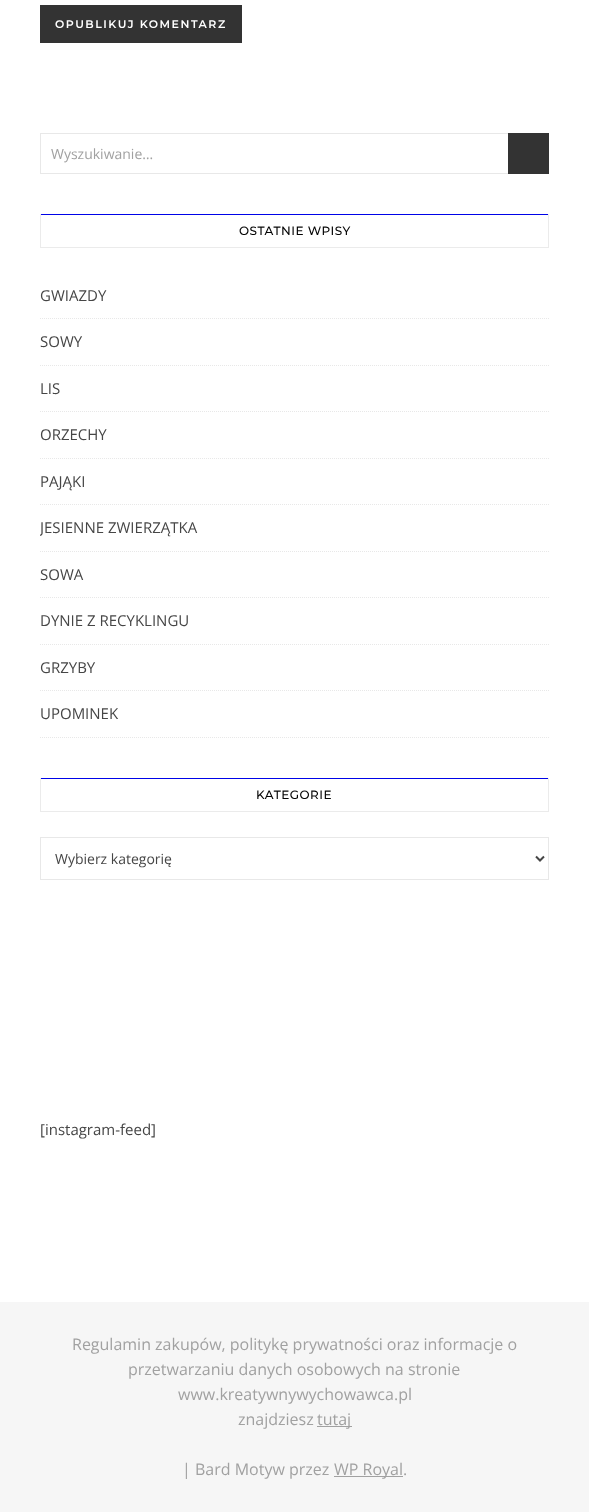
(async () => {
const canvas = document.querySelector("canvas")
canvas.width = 589
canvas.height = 1512
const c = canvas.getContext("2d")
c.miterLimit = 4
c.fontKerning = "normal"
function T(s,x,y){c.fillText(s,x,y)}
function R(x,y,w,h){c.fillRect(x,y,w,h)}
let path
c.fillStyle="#fff"
R(0,0,589,1512)
c.fillStyle="#333"
R(40,5,202,38)
c.letterSpacing="1.5px"
c.font="600 11px Montserrat"
c.fillStyle="#fff"
T("OPUBLIKUJ KOMENTARZ",55,28)
c.strokeStyle="#e8e8e8"
c.strokeRect(40.5,133.5,508,40)
c.letterSpacing="0px"
c.font="14px Open Sans"
c.fillStyle="#a1a1a1"
T("Wyszukiwanie…",51,159)
c.fillStyle="#333"
R(508,133,41,41)
c.fillStyle="#0003e8"
R(40,214,509,1)
c.fillStyle="#ebebeb"
R(548,214,1,34)
R(40,247,509,1)
R(40,214,1,34)
c.letterSpacing="0.5px"
c.font="500 12px Montserrat"
c.fillStyle="#030303"
T("OSTATNIE WPISY",239,235)
path = new Path2D("M40 318.5h509")
c.setLineDash([1,1])
c.stroke(path)
c.letterSpacing="0px"
c.font="15px Open Sans"
c.fillStyle="#464646"
T("GWIAZDY",40,301)
path = new Path2D("M40 365.5h509")
c.stroke(path)
T("SOWY",40,347)
path = new Path2D("M40 411.5h509")
c.stroke(path)
T("LIS",40,394)
path = new Path2D("M40 458.5h509")
c.stroke(path)
T("ORZECHY",40,440)
path = new Path2D("M40 504.5h509")
c.stroke(path)
T("PAJĄKI",40,487)
path = new Path2D("M40 551.5h509")
c.stroke(path)
c.save()
c.beginPath()
c.rect(40,214,509,524)
c.clip()
T("JESIENNE ZWIERZĄTKA",40,533)
c.restore()
path = new Path2D("M40 597.5h509")
c.stroke(path)
T("SOWA",40,580)
path = new Path2D("M40 644.5h509")
c.stroke(path)
T("DYNIE Z RECYKLINGU",40,626)
path = new Path2D("M40 690.5h509")
c.stroke(path)
T("GRZYBY",40,673)
path = new Path2D("M40 737.5h509")
c.stroke(path)
T("UPOMINEK",40,719)
c.fillStyle="#0003e8"
R(40,778,509,1)
c.fillStyle="#ebebeb"
R(548,778,1,34)
R(40,811,509,1)
R(40,778,1,34)
c.letterSpacing="0.5px"
c.font="500 12px Montserrat"
c.fillStyle="#030303"
T("KATEGORIE",256,799)
c.setLineDash([])
c.strokeRect(40.5,837.5,508,42)
path = new Path2D("M536 856.5l4 4l4-4")
c.strokeStyle="#464646"
c.lineWidth=2
c.stroke(path)
c.letterSpacing="0px"
c.font="14px Open Sans"
c.fillStyle="#464646"
T("Wybierz kategorię",55,864)
c.font="15px Open Sans"
T("[instagram-feed]",40,1135)
c.fillStyle="#f6f6f6"
R(0,1302,589,210)
c.font="16px Open Sans"
c.fillStyle="#a1a1a1"
T("Regulamin zakupów, politykę prywatności oraz informacje o",72,1350)
T("przetwarzaniu danych osobowych na stronie",128,1375)
T("www.kreatywnywychowawca.pl",178,1400)
T("znajdziesz",238,1425)
R(317,1426,35,1)
T("tutaj",317,1425)
T("| Bard Motyw przez",182,1475)
R(334,1476,69,1)
T("WP Royal.",334,1475)
})()
